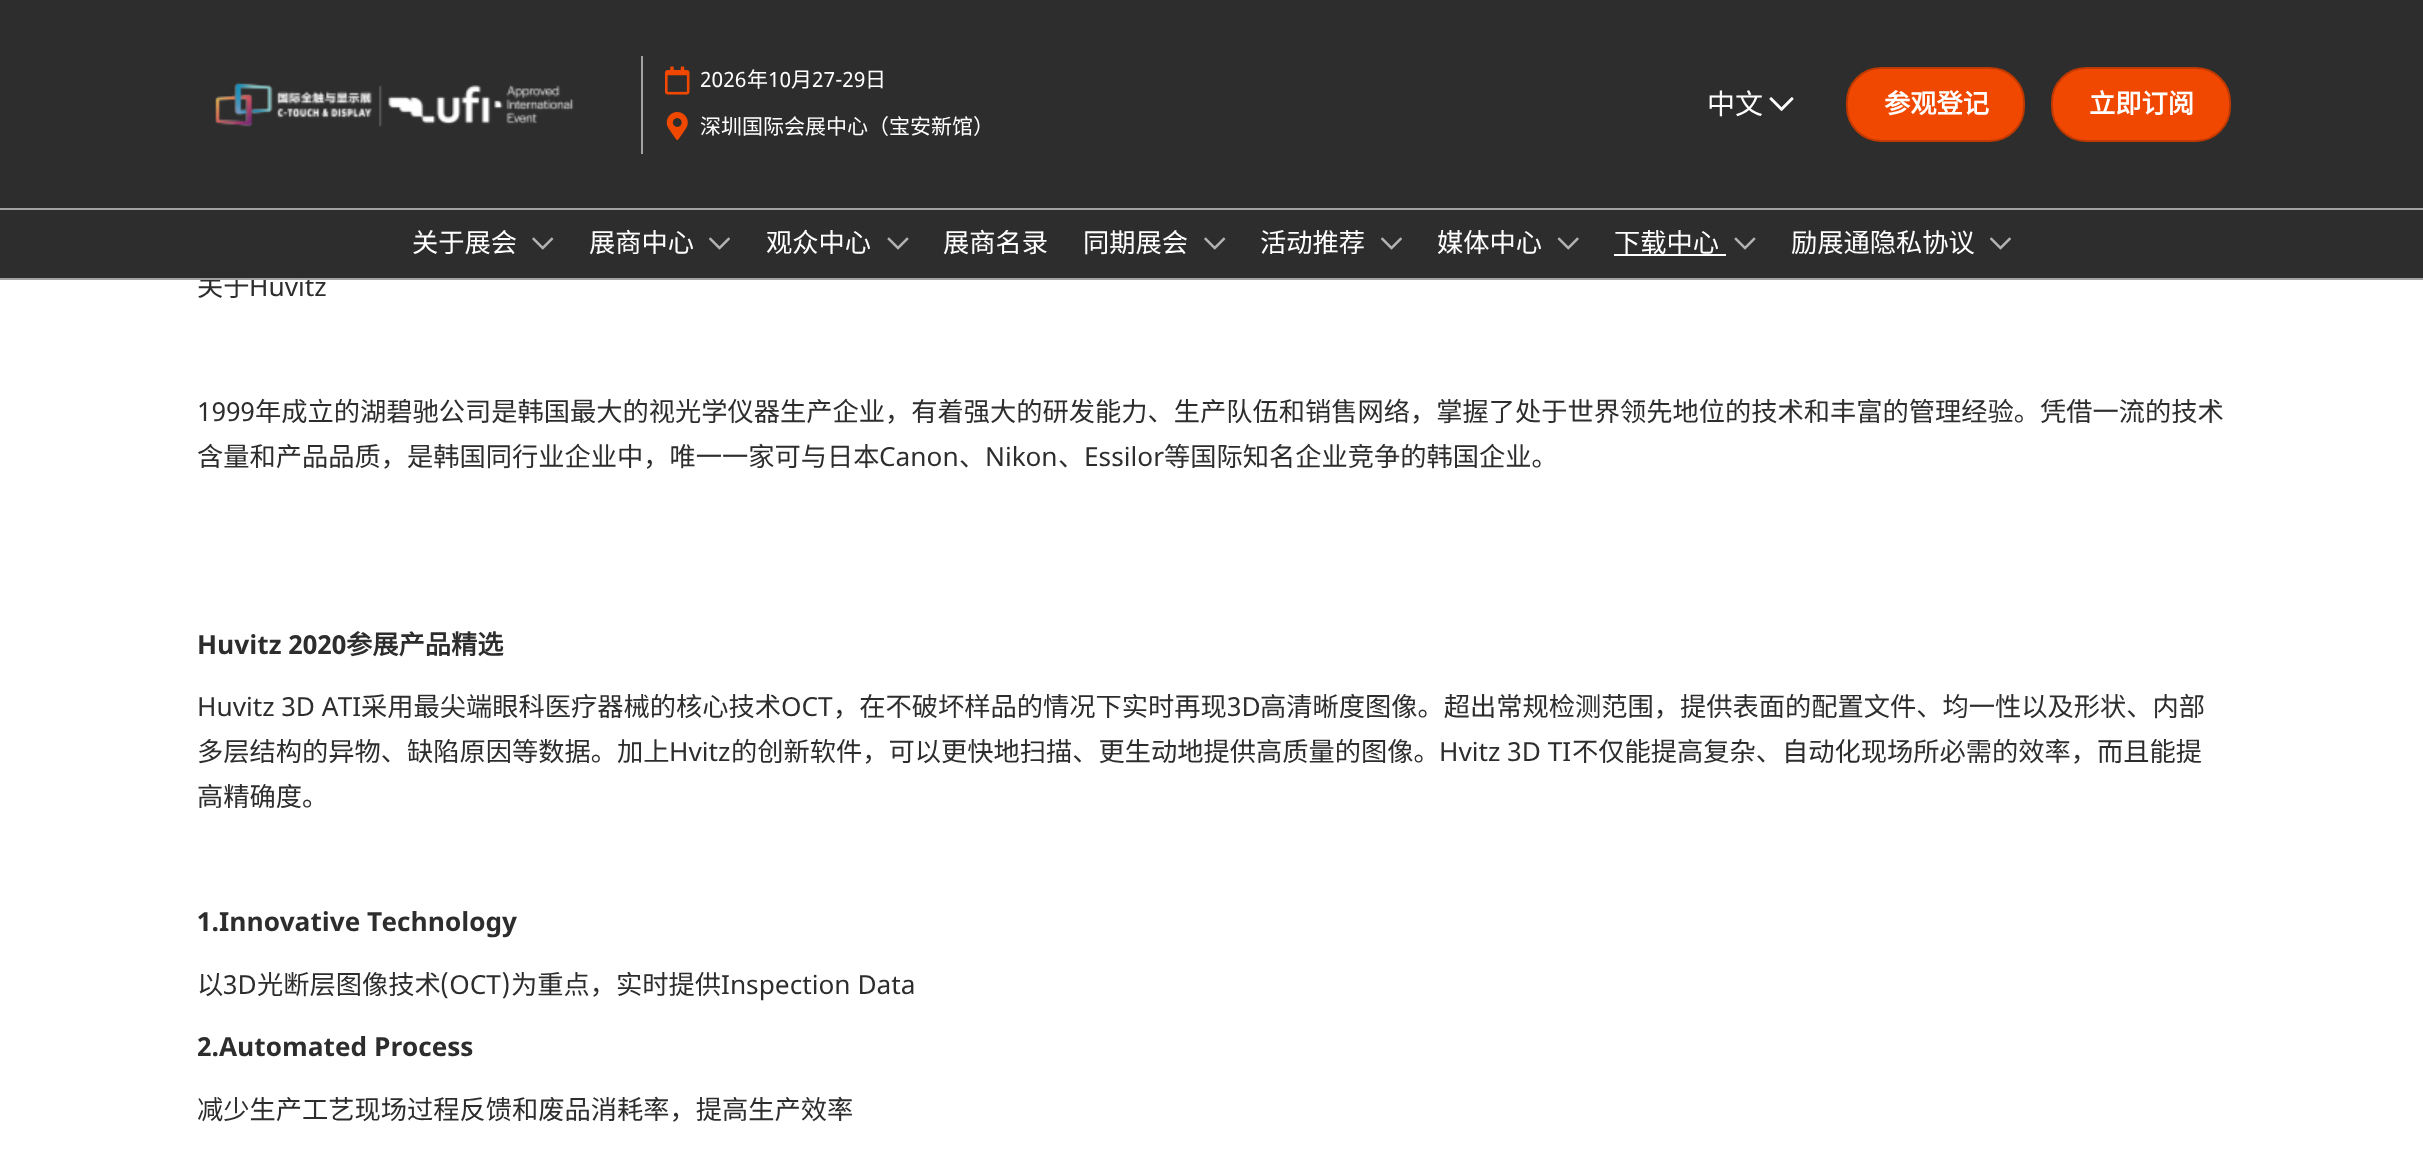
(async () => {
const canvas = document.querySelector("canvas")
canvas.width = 2423
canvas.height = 1158
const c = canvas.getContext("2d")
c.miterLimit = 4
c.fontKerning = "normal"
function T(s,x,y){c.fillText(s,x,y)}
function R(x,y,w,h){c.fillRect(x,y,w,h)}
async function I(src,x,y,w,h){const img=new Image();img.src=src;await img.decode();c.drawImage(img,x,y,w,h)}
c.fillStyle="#fff"
R(0,0,2423,1158)
c.fillStyle="#2d2d2d"
R(0,0,2423,278)
c.font="26.25px Noto Sans CJK SC"
T("关于",197,296)
c.font="26.25px Noto Sans"
T("Huvitz",249,296)
c.fillStyle="#a2a2a2"
R(0,278,2423,2)
R(0,208,2423,2)
await I("1.png",215,82,359,46)
R(641,56,2,98)
await I("2.png",665,66,25,29)
c.font="21px Noto Sans"
c.fillStyle="#fff"
T("2026",700,87)
c.font="21px Noto Sans CJK SC"
T("年",747,87)
c.font="21px Noto Sans"
T("10",768,87)
c.font="21px Noto Sans CJK SC"
T("月",791,87)
c.font="21px Noto Sans"
T("27-29",812,87)
c.font="21px Noto Sans CJK SC"
T("日",865,87)
await I("3.png",666,112,22,28)
T("深圳国际会展中心（宝安新馆）",700,134)
c.font="28px Noto Sans CJK SC"
T("中文",1707,114)
await I("4.png",1769,97,25,14)
c.fillStyle="#f04800"
c.beginPath()
c.roundRect(1847,68,177,73,34)
c.fill()
c.strokeStyle="#bf3900"
c.lineWidth=2
c.stroke()
c.font="bold 26.25px Noto Sans CJK SC"
c.fillStyle="#fff"
T("参观登记",1884,113)
c.fillStyle="#f04800"
c.beginPath()
c.roundRect(2052,68,178,73,34)
c.fill()
c.stroke()
c.fillStyle="#fff"
T("立即订阅",2089,113)
c.font="26.25px Noto Sans CJK SC"
T("关于展会",412,252)
await I("5.png",532,237,22,13)
T("展商中心",589,252)
await I("6.png",709,237,21,13)
T("观众中心",766,252)
await I("7.png",887,237,22,13)
T("展商名录",943,252)
T("同期展会",1083,252)
await I("5.png",1204,237,22,13)
T("活动推荐",1260,252)
await I("6.png",1381,237,21,13)
T("媒体中心",1437,252)
await I("8.png",1557,237,22,13)
R(1614,254,112,2)
T("下载中心",1614,252)
await I("7.png",1734,237,22,13)
T("励展通隐私协议",1791,252)
await I("6.png",1990,237,21,13)
c.font="26.25px Noto Sans"
c.fillStyle="#2d2d2d"
T("1999",197,421)
c.font="26.25px Noto Sans CJK SC"
T("年成立的湖碧驰公司是韩国最大的视光学仪器生产企业，有着强大的研发能力、生产队伍和销售网络，掌握了处于世界领先地位的技术和丰富的管理经验。凭借一流的技术",255,421)
T("含量和产品品质，是韩国同行业企业中，唯一一家可与日本",197,466)
c.font="26.25px Noto Sans"
T("Canon",879,466)
c.font="26.25px Noto Sans CJK SC"
T("、",959,466)
c.font="26.25px Noto Sans"
T("Nikon",985,466)
c.font="26.25px Noto Sans CJK SC"
T("、",1058,466)
c.font="26.25px Noto Sans"
T("Essilor",1084,466)
c.font="26.25px Noto Sans CJK SC"
T("等国际知名企业竞争的韩国企业。",1164,466)
c.font="bold 26.25px Noto Sans"
T("Huvitz 2020",197,654)
c.font="bold 26.25px Noto Sans CJK SC"
T("参展产品精选",346,654)
c.font="26.25px Noto Sans"
T("Huvitz 3D ATI",197,716)
c.font="26.25px Noto Sans CJK SC"
T("采用最尖端眼科医疗器械的核心技术",361,716)
c.font="26.25px Noto Sans"
T("OCT",781,716)
c.font="26.25px Noto Sans CJK SC"
T("，在不破坏样品的情况下实时再现",833,716)
c.font="26.25px Noto Sans"
T("3D",1227,716)
c.font="26.25px Noto Sans CJK SC"
T("高清晰度图像。超出常规检测范围，提供表面的配置文件、均一性以及形状、内部",1260,716)
T("多层结构的异物、缺陷原因等数据。加上",197,761)
c.font="26.25px Noto Sans"
T("Hvitz",669,761)
c.font="26.25px Noto Sans CJK SC"
T("的创新软件，可以更快地扫描、更生动地提供高质量的图像。",731,761)
c.font="26.25px Noto Sans"
T("Hvitz 3D TI",1439,761)
c.font="26.25px Noto Sans CJK SC"
T("不仅能提高复杂、自动化现场所必需的效率，而且能提",1572,761)
T("高精确度。",197,806)
c.font="bold 26.25px Noto Sans"
T("1.Innovative Technology",197,931)
c.font="26.25px Noto Sans CJK SC"
T("以",197,994)
c.font="26.25px Noto Sans"
T("3D",223,994)
c.font="26.25px Noto Sans CJK SC"
T("光断层图像技术",257,994)
c.font="26.25px Noto Sans"
T("(OCT)",440,994)
c.font="26.25px Noto Sans CJK SC"
T("为重点，实时提供",511,994)
c.font="26.25px Noto Sans"
T("Inspection Data",721,994)
c.font="bold 26.25px Noto Sans"
T("2.Automated Process",197,1056)
c.font="26.25px Noto Sans CJK SC"
T("减少生产工艺现场过程反馈和废品消耗率，提高生产效率",197,1119)
})()
